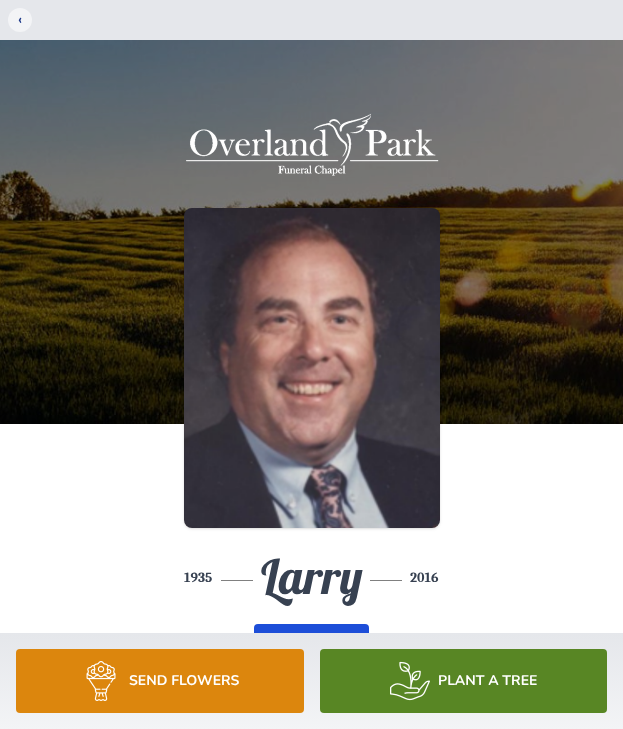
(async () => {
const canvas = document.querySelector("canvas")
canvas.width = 623
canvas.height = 729
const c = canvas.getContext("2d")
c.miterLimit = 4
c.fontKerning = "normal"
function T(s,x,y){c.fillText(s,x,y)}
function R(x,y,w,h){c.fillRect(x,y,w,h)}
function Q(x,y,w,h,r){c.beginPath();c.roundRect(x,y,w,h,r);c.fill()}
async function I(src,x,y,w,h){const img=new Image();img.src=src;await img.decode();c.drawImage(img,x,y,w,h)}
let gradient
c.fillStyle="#fff"
R(0,0,623,729)
c.fillStyle="#e5e7eb"
R(0,0,623,40)
c.fillStyle="#f3f4f6"
c.beginPath()
c.arc(20,20,12,0,7)
c.fill()
c.font="bold 14px Nunito"
c.fillStyle="#1e3a8a"
T("‹",18,24)
await I("1.png",0,40,623,384)
await I("2.png",186,113,253,63)
c.fillStyle="#0000001a"
c.filter="blur(1px)"
c.beginPath()
c.roundRect(185,210,254,318,7)
c.fill()
c.filter="none"
c.filter="blur(1.5px)"
c.beginPath()
c.roundRect(184,209,256,320,8)
c.fill()
c.filter="none"
await I("3.png",184,208,256,320)
c.font="bold 14px Caladea"
c.fillStyle="#374151"
T("1935",184,582)
c.fillStyle="#808080"
R(221,580,32,1)
c.font="48px Lobster"
c.fillStyle="#374151"
T("Larry",261,594)
c.fillStyle="#808080"
R(370,580,32,1)
c.font="bold 14px Caladea"
c.fillStyle="#374151"
T("2016",410,582)
c.fillStyle="#1d4ed8"
Q(254,624,115,40,4)
gradient = c.createLinearGradient(312,633,312,729)
gradient.addColorStop(0,"#e5e7eb")
gradient.addColorStop(1,"#f3f4f6")
c.fillStyle = gradient
R(0,633,623,96)
c.fillStyle="#dc860d"
Q(16,649,288,64,4)
await I("4.png",86,661,30,40)
c.font="bold 14px Nunito"
c.fillStyle="#fff"
T("SEND FLOWERS",129,685)
c.fillStyle="#588624"
Q(320,649,287,64,4)
await I("5.png",390,661,40,40)
c.fillStyle="#fff"
T("PLANT A TREE",438,685)
})()
